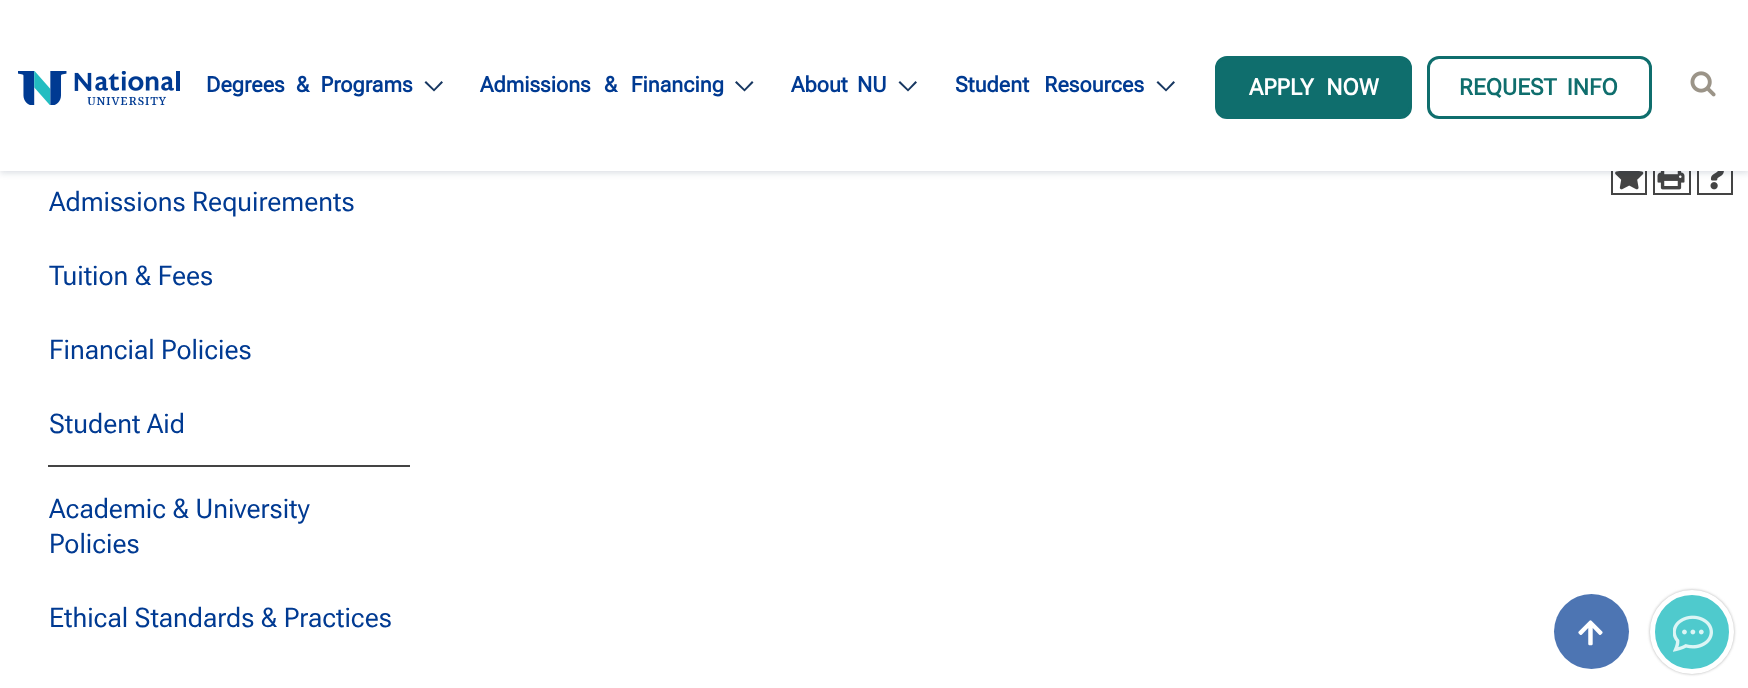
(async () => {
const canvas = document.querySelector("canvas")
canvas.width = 1748
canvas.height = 688
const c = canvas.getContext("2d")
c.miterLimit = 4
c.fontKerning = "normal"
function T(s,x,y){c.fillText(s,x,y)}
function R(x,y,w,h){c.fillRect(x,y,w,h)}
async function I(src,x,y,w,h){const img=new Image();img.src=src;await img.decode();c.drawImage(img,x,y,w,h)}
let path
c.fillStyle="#fff"
R(0,0,1748,688)
c.strokeStyle="#444"
c.lineWidth=2
c.strokeRect(1612,159,34,35)
await I("3.png",1615,171,29,19)
c.strokeRect(1654,159,36,35)
await I("4.png",1657,171,28,19)
c.strokeRect(1698,159,34,35)
await I("5.png",1710,171,14,19)
c.fillStyle="#07204626"
c.filter="blur(3px)"
c.beginPath()
c.rect(0,2,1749,171)
c.fill()
c.filter="none"
c.fillStyle="#fff"
R(0,0,1748,171)
await I("1.png",18,71,162,34)
c.wordSpacing="6px"
c.font="bold 21.5px Roboto Flex"
c.fillStyle="#003a92"
T("Degrees & Programs",206,92)
c.fillStyle="#173761"
path = new Path2D("M441.5 81l-7.5 8l-8-8l-1.5 1.5l9.5 9l9-9z")
c.fill(path)
c.wordSpacing="8px"
c.fillStyle="#003a92"
T("Admissions & Financing",480,92)
c.fillStyle="#173761"
path = new Path2D("M752 81l-7.5 8l-8-8l-1.5 1.5l9.5 9l9-9z")
c.fill(path)
c.wordSpacing="4px"
c.fillStyle="#003a92"
T("About NU",791,92)
c.fillStyle="#173761"
path = new Path2D("M915.5 81l-7.5 8l-8-8l-1.5 1.5l9.5 9l9-9z")
c.fill(path)
c.wordSpacing="10px"
c.fillStyle="#003a92"
T("Student Resources",955,92)
c.fillStyle="#173761"
path = new Path2D("M1173.5 81l-7.5 8l-8-8l-1.5 1.5l9.5 9l9-9z")
c.fill(path)
c.fillStyle="#0f6e6d"
c.beginPath()
c.roundRect(1216.5,57.5,194,60,10.5)
c.fill()
c.strokeStyle="#0f6e6d"
c.lineWidth=3
c.stroke()
c.wordSpacing="7px"
c.font="bold 22.75px Roboto Flex"
c.fillStyle="#fff"
T("APPLY NOW",1249,95)
c.beginPath()
c.roundRect(1428.5,57.5,222,60,10.5)
c.stroke()
c.wordSpacing="5px"
c.fillStyle="#0f6e6d"
T("REQUEST INFO",1459,95)
await I("2.png",1690,71,26,26)
c.wordSpacing="0px"
c.font="27px Roboto Flex"
c.fillStyle="#003a92"
T("Admissions Requirements",49,211)
T("Tuition & Fees",49,285)
T("Financial Policies",49,359)
T("Student Aid",49,433)
c.fillStyle="#444"
R(48,465,362,2)
c.fillStyle="#003a92"
T("Academic & University",49,518)
T("Policies",49,553)
T("Ethical Standards & Practices",49,627)
c.fillStyle="#4d75b3"
c.beginPath()
c.arc(1591.5,631.5,37.5,0,7)
c.fill()
await I("6.png",1578,620,25,26)
c.fillStyle="#adadad"
c.filter="blur(1.5px)"
c.beginPath()
c.roundRect(1650,590,84,84,42)
c.fill()
c.filter="none"
c.fillStyle="#4fcacd"
c.beginPath()
c.arc(1692,632,39.5,0,7)
c.fill()
c.strokeStyle="#fff"
c.lineWidth=5
c.stroke()
await I("7.png",1673,615,40,37)
})()
